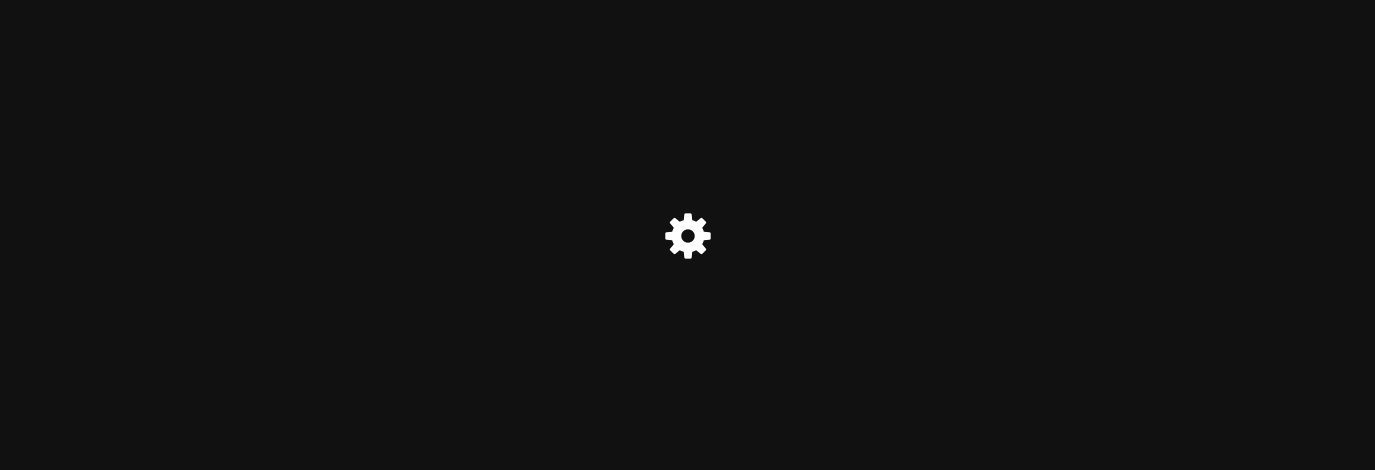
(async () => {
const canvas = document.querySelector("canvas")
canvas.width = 1375
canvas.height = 470
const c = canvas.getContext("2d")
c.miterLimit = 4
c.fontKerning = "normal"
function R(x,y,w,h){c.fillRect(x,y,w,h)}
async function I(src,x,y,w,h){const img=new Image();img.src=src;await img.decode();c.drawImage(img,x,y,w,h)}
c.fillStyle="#111"
R(0,0,1375,470)
await I("1.png",665,213,46,46)
})()
